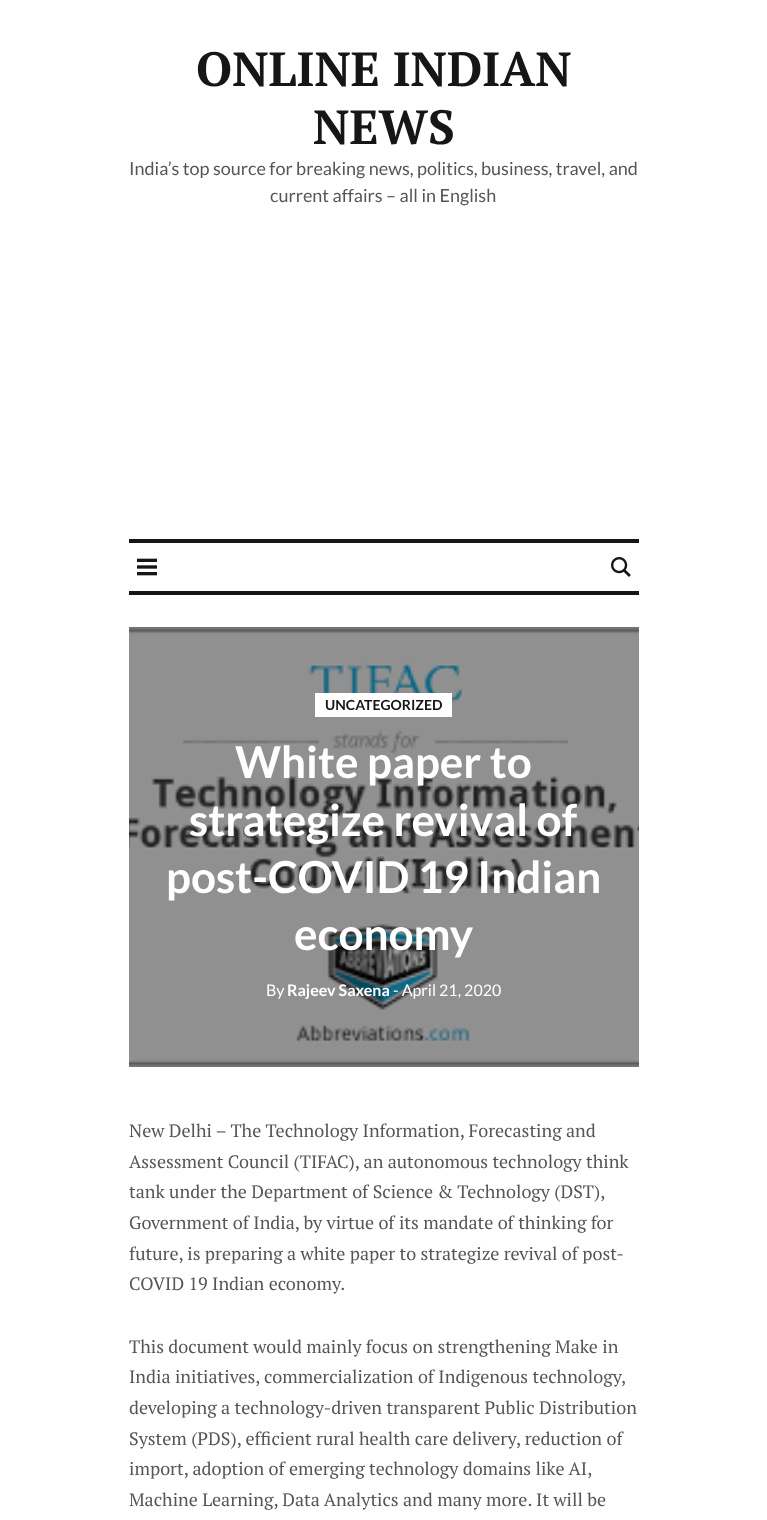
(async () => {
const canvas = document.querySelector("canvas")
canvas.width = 767
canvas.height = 1520
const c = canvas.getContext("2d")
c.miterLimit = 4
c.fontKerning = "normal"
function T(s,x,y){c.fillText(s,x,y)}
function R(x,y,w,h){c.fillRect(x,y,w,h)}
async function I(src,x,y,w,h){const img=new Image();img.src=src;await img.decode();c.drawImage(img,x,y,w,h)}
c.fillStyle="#fff"
R(0,0,767,1520)
c.font="bold 48px PT Serif"
c.fillStyle="#161616"
T("ONLINE INDIAN",196,86)
T("NEWS",313,144)
c.font="18px Lato"
c.fillStyle="#565656"
T("India’s top source for breaking news, politics, business, travel, and",129,175)
T("current affairs – all in English",270,202)
c.fillStyle="#161616"
R(129,539,510,4)
R(129,591,510,4)
await I("1.png",137,558,20,18)
await I("2.png",611,557,20,20)
await I("3.png",129,627,510,440)
c.fillStyle="#fff"
R(315,693,137,24)
c.font="bold 14px Lato"
c.fillStyle="#161616"
T("UNCATEGORIZED",325,710)
c.font="bold 44px Lato"
c.fillStyle="#fff"
T("White paper to",235,778)
T("strategize revival of",189,836)
T("post-COVID 19 Indian",166,893)
T("economy",294,950)
c.font="16px Lato"
T("By",266,996)
c.font="bold 16px Lato"
T("Rajeev Saxena",287,996)
c.font="16px Lato"
T("- April 21, 2020",393,996)
c.font="18px PT Serif"
c.fillStyle="#565656"
T("New Delhi – The Technology Information, Forecasting and",129,1137)
T("Assessment Council (TIFAC), an autonomous technology think",129,1168)
T("tank under the Department of Science & Technology (DST),",129,1198)
T("Government of India, by virtue of its mandate of thinking for",129,1229)
T("future, is preparing a white paper to strategize revival of post-",129,1260)
T("COVID 19 Indian economy.",129,1290)
T("This document would mainly focus on strengthening Make in",129,1353)
T("India initiatives, commercialization of Indigenous technology,",129,1383)
T("developing a technology-driven transparent Public Distribution",129,1414)
T("System (PDS), efficient rural health care delivery, reduction of",129,1445)
T("import, adoption of emerging technology domains like AI,",129,1475)
T("Machine Learning, Data Analytics and many more. It will be",129,1506)
})()
